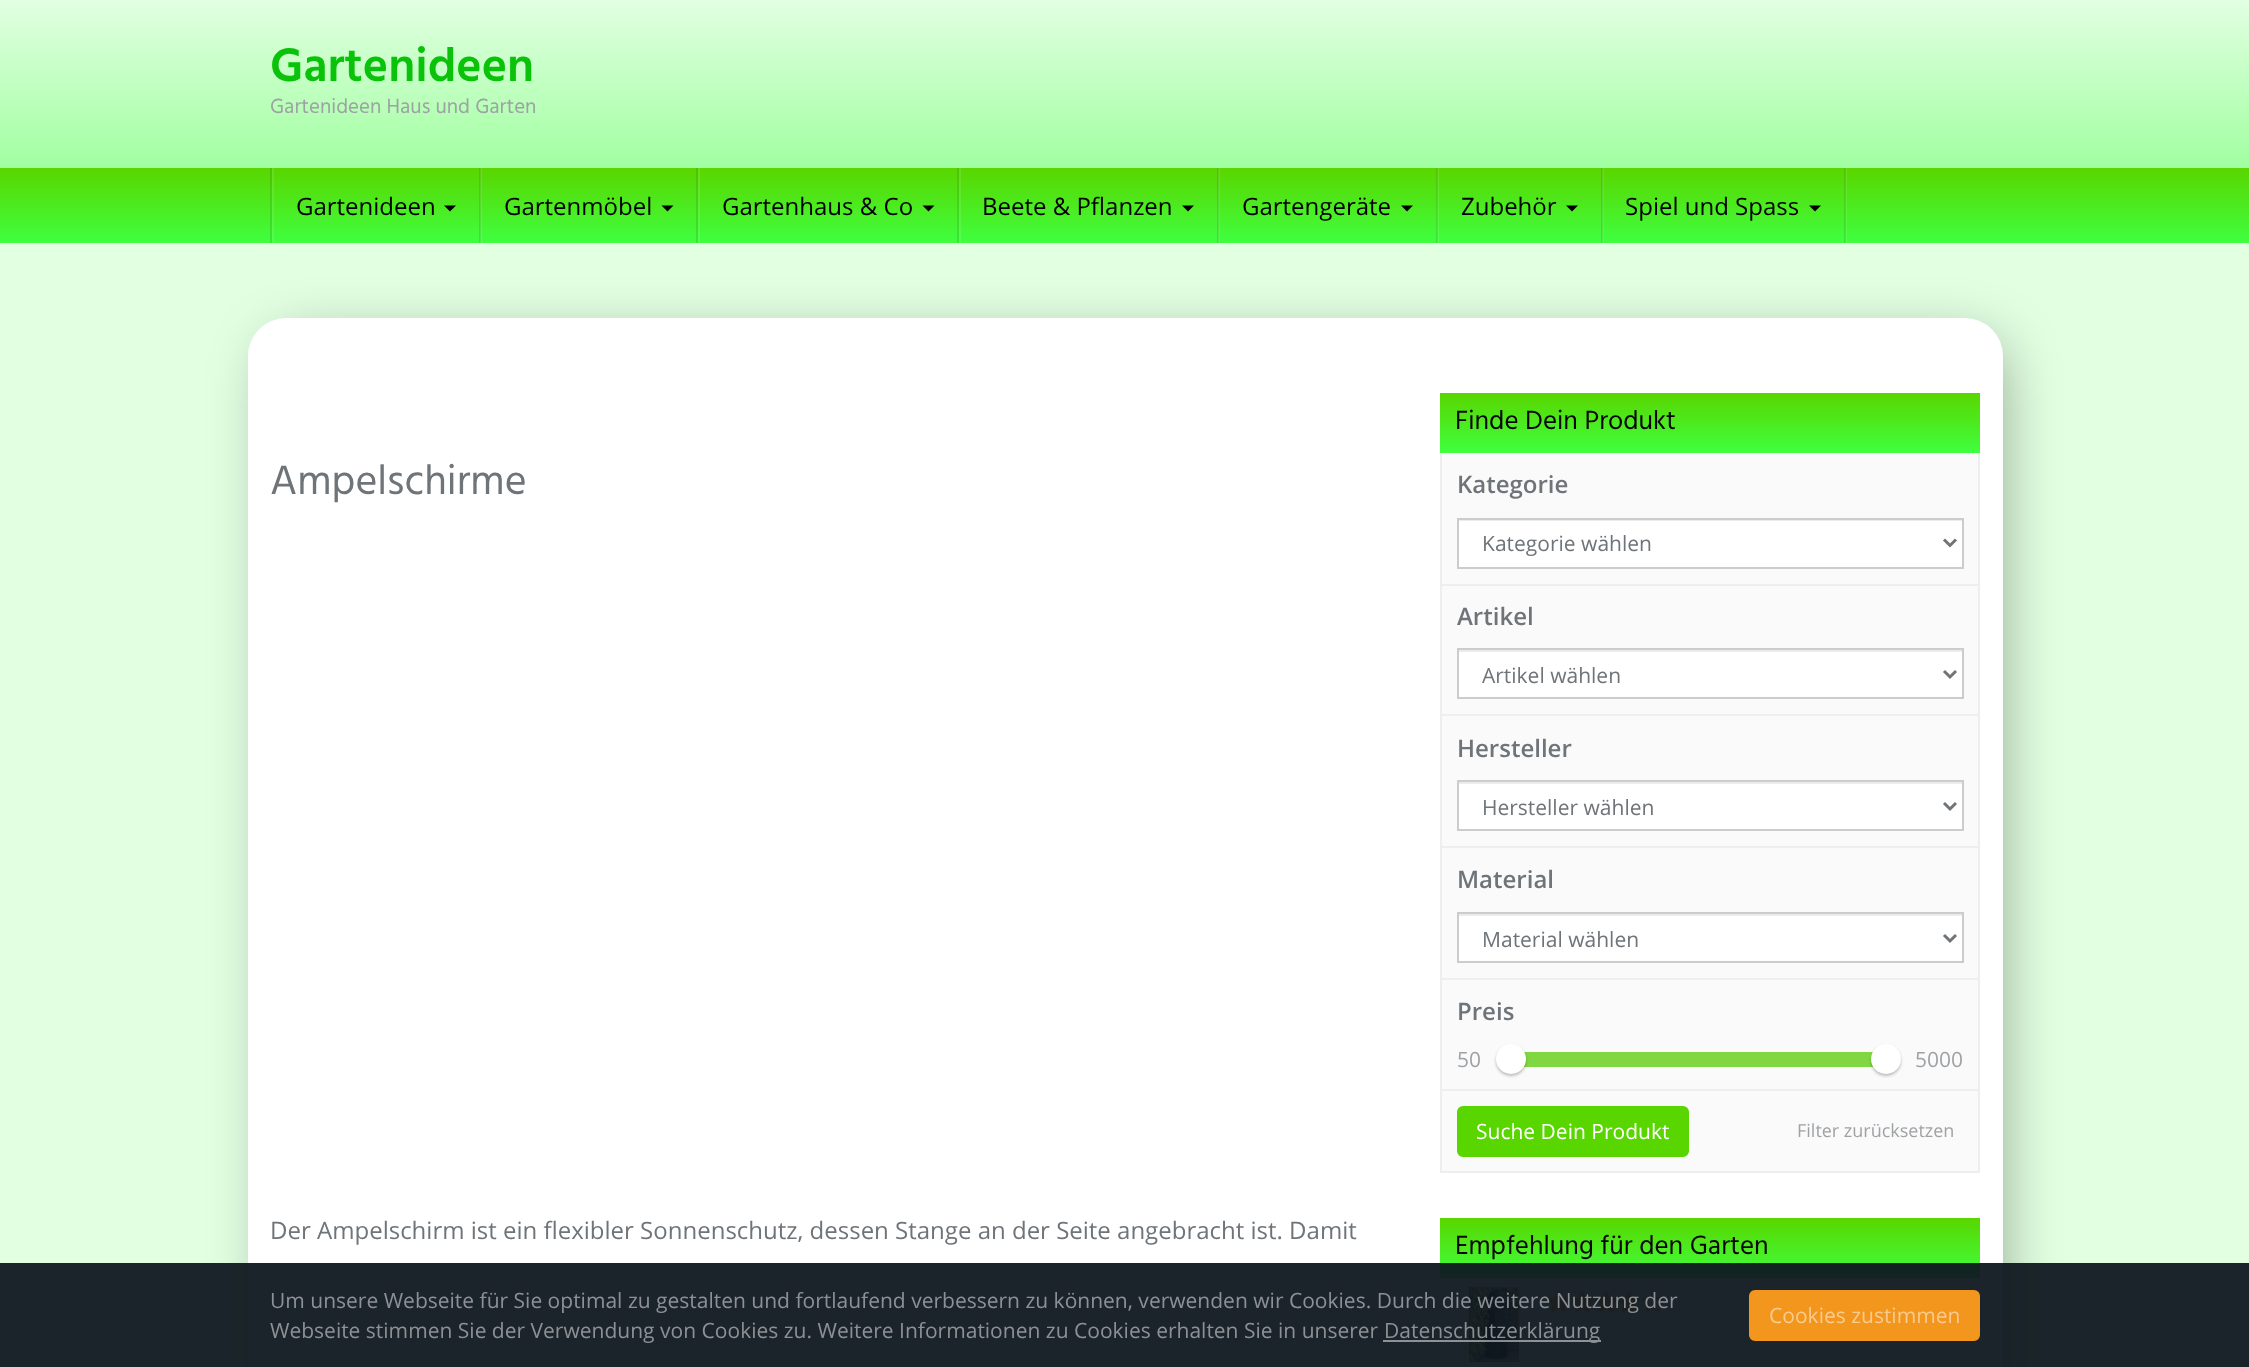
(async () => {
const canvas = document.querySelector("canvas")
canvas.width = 2249
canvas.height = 1367
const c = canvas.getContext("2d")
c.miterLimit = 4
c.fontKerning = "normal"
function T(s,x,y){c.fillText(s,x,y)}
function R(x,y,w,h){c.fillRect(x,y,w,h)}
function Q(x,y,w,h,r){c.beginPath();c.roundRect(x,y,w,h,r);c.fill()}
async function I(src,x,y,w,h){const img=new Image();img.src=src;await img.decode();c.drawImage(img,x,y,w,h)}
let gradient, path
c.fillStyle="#e2ffe2"
R(0,0,2249,1367)
gradient = c.createLinearGradient(1125,0,1125,243)
gradient.addColorStop(0,"#e2ffe2")
gradient.addColorStop(1,"#84ff84")
c.fillStyle = gradient
R(0,6,2249,162)
c.font="600 48px Hind"
c.fillStyle="#09c209"
T("Gartenideen",270,81)
c.font="21px Hind"
c.fillStyle="#9fa2a5"
T("Gartenideen Haus und Garten",270,113)
gradient = c.createLinearGradient(1125,168,1125,243)
gradient.addColorStop(0,"#59d600")
gradient.addColorStop(1,"#3fff3f")
c.fillStyle = gradient
R(0,168,2249,75)
gradient = c.createLinearGradient(1125,168,1125,243)
gradient.addColorStop(0,"#6ada1a")
gradient.addColorStop(1,"#52ff52")
c.fillStyle = gradient
R(1603,168,1,75)
gradient = c.createLinearGradient(1125,168,1125,243)
gradient.addColorStop(0,"#50c100")
gradient.addColorStop(1,"#39e639")
c.fillStyle = gradient
R(1844,168,1,75)
gradient = c.createLinearGradient(1125,168,1125,243)
gradient.addColorStop(0,"#6ada1a")
gradient.addColorStop(1,"#52ff52")
c.fillStyle = gradient
R(1438,168,1,75)
gradient = c.createLinearGradient(1125,168,1125,243)
gradient.addColorStop(0,"#50c100")
gradient.addColorStop(1,"#39e639")
c.fillStyle = gradient
R(1601,168,1,75)
gradient = c.createLinearGradient(1125,168,1125,243)
gradient.addColorStop(0,"#62c71a")
gradient.addColorStop(1,"#4de94d")
c.fillStyle = gradient
R(1602,168,1,75)
gradient = c.createLinearGradient(1125,168,1125,243)
gradient.addColorStop(0,"#6ada1a")
gradient.addColorStop(1,"#52ff52")
c.fillStyle = gradient
R(1219,168,1,75)
gradient = c.createLinearGradient(1125,168,1125,243)
gradient.addColorStop(0,"#50c100")
gradient.addColorStop(1,"#39e639")
c.fillStyle = gradient
R(1436,168,1,75)
gradient = c.createLinearGradient(1125,168,1125,243)
gradient.addColorStop(0,"#62c71a")
gradient.addColorStop(1,"#4de94d")
c.fillStyle = gradient
R(1437,168,1,75)
gradient = c.createLinearGradient(1125,168,1125,243)
gradient.addColorStop(0,"#6ada1a")
gradient.addColorStop(1,"#52ff52")
c.fillStyle = gradient
R(959,168,2,75)
gradient = c.createLinearGradient(1125,168,1125,243)
gradient.addColorStop(0,"#50c100")
gradient.addColorStop(1,"#39e639")
c.fillStyle = gradient
R(1217,168,1,75)
gradient = c.createLinearGradient(1125,168,1125,243)
gradient.addColorStop(0,"#62c71a")
gradient.addColorStop(1,"#4de94d")
c.fillStyle = gradient
R(1218,168,1,75)
gradient = c.createLinearGradient(1125,168,1125,243)
gradient.addColorStop(0,"#6ada1a")
gradient.addColorStop(1,"#52ff52")
c.fillStyle = gradient
R(698,168,2,75)
gradient = c.createLinearGradient(1125,168,1125,243)
gradient.addColorStop(0,"#50c100")
gradient.addColorStop(1,"#39e639")
c.fillStyle = gradient
R(957,168,2,75)
gradient = c.createLinearGradient(1125,168,1125,243)
gradient.addColorStop(0,"#6ada1a")
gradient.addColorStop(1,"#52ff52")
c.fillStyle = gradient
R(481,168,1,75)
gradient = c.createLinearGradient(1125,168,1125,243)
gradient.addColorStop(0,"#50c100")
gradient.addColorStop(1,"#39e639")
c.fillStyle = gradient
R(696,168,2,75)
gradient = c.createLinearGradient(1125,168,1125,243)
gradient.addColorStop(0,"#6ada1a")
gradient.addColorStop(1,"#52ff52")
c.fillStyle = gradient
R(272,168,2,75)
gradient = c.createLinearGradient(1125,168,1125,243)
gradient.addColorStop(0,"#50c100")
gradient.addColorStop(1,"#39e639")
c.fillStyle = gradient
R(479,168,1,75)
gradient = c.createLinearGradient(1125,168,1125,243)
gradient.addColorStop(0,"#62c71a")
gradient.addColorStop(1,"#4de94d")
c.fillStyle = gradient
R(480,168,1,75)
gradient = c.createLinearGradient(1125,168,1125,243)
gradient.addColorStop(0,"#50c100")
gradient.addColorStop(1,"#39e639")
c.fillStyle = gradient
R(270,168,2,75)
gradient = c.createLinearGradient(1125,168,1125,243)
gradient.addColorStop(0,"#6ada1a")
gradient.addColorStop(1,"#52ff52")
c.fillStyle = gradient
R(1846,168,1,75)
gradient = c.createLinearGradient(1125,168,1125,243)
gradient.addColorStop(0,"#5fc417")
gradient.addColorStop(1,"#4ae64a")
c.fillStyle = gradient
R(1845,168,1,75)
c.font="24px Open Sans"
c.fillStyle="#000"
T("Gartenideen",296,215)
path = new Path2D("M444 205.5h12l-6 6z")
c.fill(path)
T("Gartenmöbel",504,215)
path = new Path2D("M661.5 205.5h12l-6 6z")
c.fill(path)
T("Gartenhaus & Co",722,215)
path = new Path2D("M922.5 205.5h12l-6 6z")
c.fill(path)
T("Beete & Pflanzen",982,215)
path = new Path2D("M1182 205.5h12l-6 6z")
c.fill(path)
T("Gartengeräte",1242,215)
path = new Path2D("M1401 205.5h12l-6 6z")
c.fill(path)
T("Zubehör",1461,215)
path = new Path2D("M1566 205.5h12l-6 6z")
c.fill(path)
T("Spiel und Spass",1625,215)
path = new Path2D("M1809 205.5h12l-6 6z")
c.fill(path)
c.fillStyle="#00000066"
c.filter="blur(30px)"
c.beginPath()
c.roundRect(273,344,1725,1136,23)
c.fill()
c.filter="none"
c.fillStyle="#fff"
Q(248,318,1755,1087,38)
c.font="42px Hind"
c.fillStyle="#6f7479"
T("Ampelschirme",270,494)
c.font="24px Open Sans"
T("Der Ampelschirm ist ein flexibler Sonnenschutz, dessen Stange an der Seite angebracht ist. Damit",270,1239)
c.fillStyle="#fafafa"
R(1442,453,536,718)
c.strokeStyle="#eee"
c.lineWidth=2
c.strokeRect(1441,394,538,778)
gradient = c.createLinearGradient(1710,393,1710,453)
gradient.addColorStop(0,"#59d600")
gradient.addColorStop(1,"#3fff3f")
c.fillStyle = gradient
R(1440,393,540,60)
c.font="27px Hind"
c.fillStyle="#070707"
T("Finde Dein Produkt",1455,429)
c.font="600 24px Open Sans"
c.fillStyle="#6f7479"
T("Kategorie",1457,493)
c.fillStyle="#fff"
R(1459,521,503,46)
c.fillStyle="#ececec"
R(1458,520,504,1)
c.strokeStyle="#ccc"
c.strokeRect(1458,519,505,49)
path = new Path2D("M1944 539.5l6 6l6-6")
c.strokeStyle="#6f7479"
c.lineWidth=3
c.stroke(path)
c.font="21px Open Sans"
c.fillStyle="#6f7479"
T("Kategorie wählen",1482,551)
c.fillStyle="#eee"
R(1442,584,537,2)
c.font="600 24px Open Sans"
c.fillStyle="#6f7479"
T("Artikel",1457,625)
c.fillStyle="#fff"
R(1459,652,503,45)
c.fillStyle="#ececec"
R(1458,650,504,2)
c.strokeStyle="#ccc"
c.lineWidth=2
c.strokeRect(1458,649,505,49)
path = new Path2D("M1944 671l6 6l6-6")
c.strokeStyle="#6f7479"
c.lineWidth=3
c.stroke(path)
c.font="21px Open Sans"
c.fillStyle="#6f7479"
T("Artikel wählen",1482,683)
c.fillStyle="#eee"
R(1442,714,537,2)
c.font="600 24px Open Sans"
c.fillStyle="#6f7479"
T("Hersteller",1457,757)
c.fillStyle="#fff"
R(1459,784,503,45)
c.fillStyle="#ececec"
R(1458,782,504,2)
c.strokeStyle="#ccc"
c.lineWidth=2
c.strokeRect(1458,781,505,49)
path = new Path2D("M1944 803l6 6l6-6")
c.strokeStyle="#6f7479"
c.lineWidth=3
c.stroke(path)
c.font="21px Open Sans"
c.fillStyle="#6f7479"
T("Hersteller wählen",1482,815)
c.fillStyle="#eee"
R(1442,846,537,2)
c.font="600 24px Open Sans"
c.fillStyle="#6f7479"
T("Material",1457,888)
c.fillStyle="#fff"
R(1459,916,503,45)
c.fillStyle="#ececec"
R(1458,914,504,2)
c.strokeStyle="#ccc"
c.lineWidth=2
c.strokeRect(1458,913,505,49)
path = new Path2D("M1944 935l6 6l6-6")
c.strokeStyle="#6f7479"
c.lineWidth=3
c.stroke(path)
c.font="21px Open Sans"
c.fillStyle="#6f7479"
T("Material wählen",1482,947)
c.fillStyle="#eee"
R(1442,978,537,2)
c.font="600 24px Open Sans"
c.fillStyle="#6f7479"
T("Preis",1457,1020)
c.font="21px Open Sans"
c.fillStyle="#9fa2a5"
T("50",1457,1067)
c.fillStyle="#81d742"
R(1523,1052,351,15)
c.fillStyle="#00000040"
c.filter="blur(1.5px)"
c.beginPath()
c.roundRect(1496,1046,30,30,15)
c.fill()
c.filter="none"
c.fillStyle="#fff"
c.beginPath()
c.arc(1511,1059,15,0,7)
c.fill()
c.fillStyle="#00000040"
c.filter="blur(1.5px)"
c.beginPath()
c.roundRect(1871,1046,30,30,15)
c.fill()
c.filter="none"
c.fillStyle="#fff"
c.beginPath()
c.arc(1886,1059,15,0,7)
c.fill()
c.fillStyle="#9fa2a5"
T("5000",1915,1067)
c.fillStyle="#eee"
R(1442,1089,537,2)
c.fillStyle="#59d600"
c.beginPath()
c.roundRect(1458,1107,230,49,5)
c.fill()
c.strokeStyle="#59d600"
c.lineWidth=2
c.stroke()
c.fillStyle="#fff"
T("Suche Dein Produkt",1476,1139)
c.font="18px Open Sans"
c.fillStyle="#9fa2a5"
T("Filter zurücksetzen",1797,1137)
c.fillStyle="#fafafa"
R(1442,1280,536,87)
c.strokeStyle="#eee"
c.strokeRect(1441,1219,538,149)
gradient = c.createLinearGradient(1710,1218,1710,1278)
gradient.addColorStop(0,"#59d600")
gradient.addColorStop(1,"#3fff3f")
c.fillStyle = gradient
R(1440,1218,540,60)
c.font="27px Hind"
c.fillStyle="#070707"
T("Empfehlung für den Garten",1455,1254)
c.fillStyle="#eee"
R(1442,1278,537,2)
await I("1.png",1457,1287,74,75)
await I("2.png",1547,1291,23,22)
await I("2.png",1571,1291,23,22)
await I("2.png",1595,1291,23,22)
await I("3.png",1617,1291,23,22)
await I("4.png",1641,1291,23,22)
c.fillStyle="#101820f2"
R(0,1263,2249,104)
c.font="21px Open Sans"
c.fillStyle="#8d9195"
T("Um unsere Webseite für Sie optimal zu gestalten und fortlaufend verbessern zu können, verwenden wir Cookies. Durch die weitere Nutzung der",270,1308)
T("Webseite stimmen Sie der Verwendung von Cookies zu. Weitere Informationen zu Cookies erhalten Sie in unserer",270,1338)
c.fillStyle="#ffffff80"
R(1383,1340,218,2)
c.fillStyle="#8d9195"
T("Datenschutzerklärung",1384,1338)
c.fillStyle="#f3961d"
c.beginPath()
c.roundRect(1750,1291,229,49,5)
c.fill()
c.strokeStyle="#f3961d"
c.stroke()
c.fillStyle="#f9cb8e"
T("Cookies zustimmen",1769,1323)
})()
